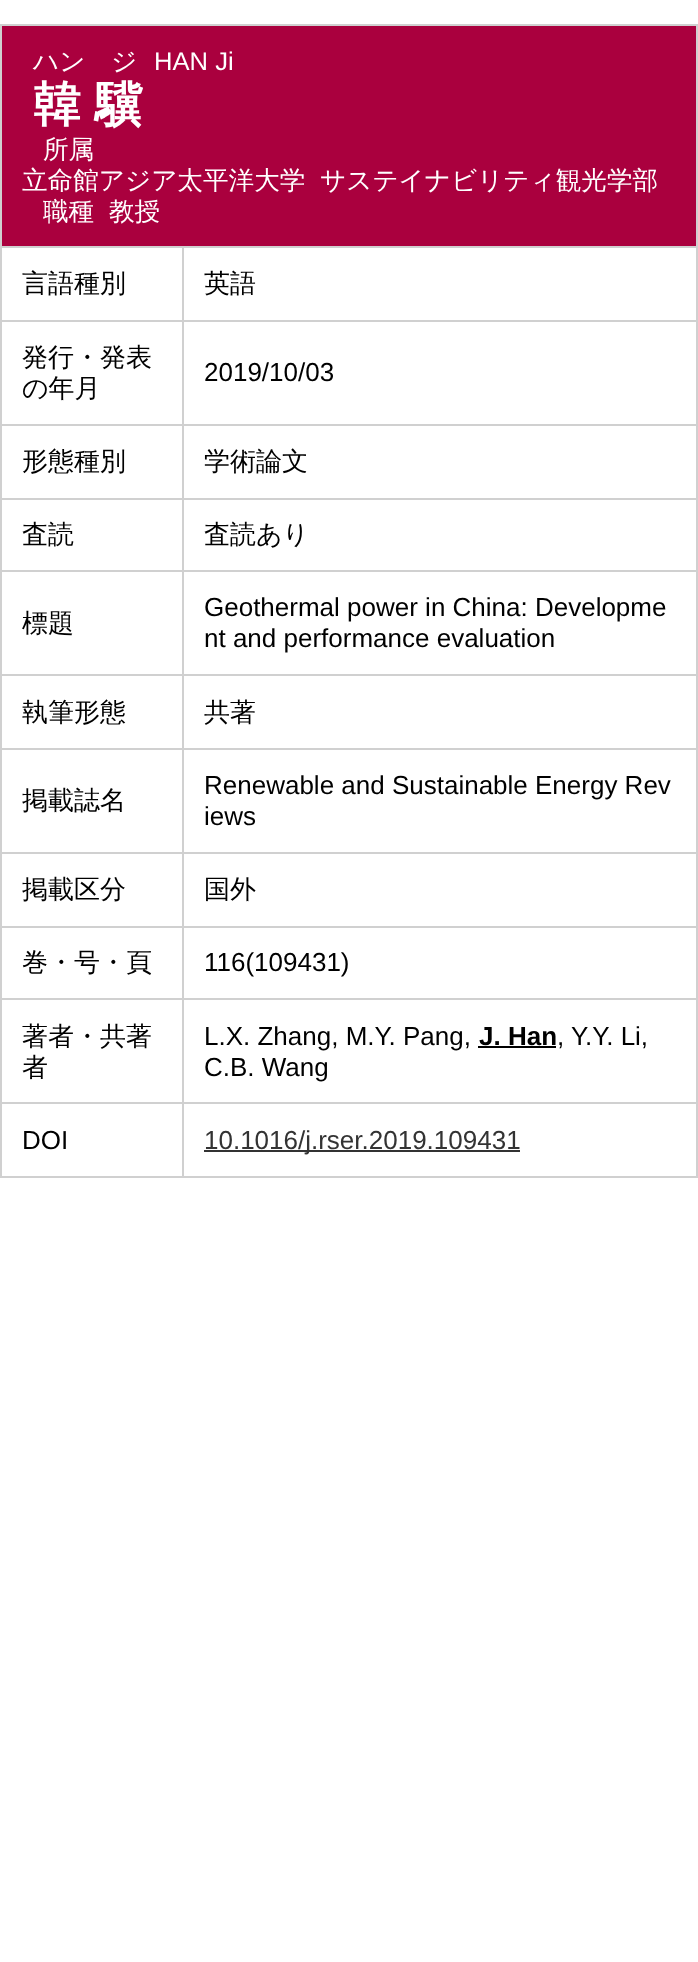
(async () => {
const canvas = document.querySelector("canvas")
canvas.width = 698
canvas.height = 1962
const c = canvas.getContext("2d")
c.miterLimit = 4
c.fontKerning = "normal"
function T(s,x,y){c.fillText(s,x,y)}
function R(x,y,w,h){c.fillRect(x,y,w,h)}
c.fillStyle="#fff"
R(0,0,698,1962)
c.fillStyle="#d0d0d0"
R(0,24,698,1154)
c.fillStyle="#aa003e"
R(2,26,694,220)
c.font="500 25.6px WenQuanYi Zen Hei"
c.fillStyle="#fff"
T("ハン　ジ",33,70)
c.font="25.6px Liberation Sans"
T("HAN Ji",154,70)
c.wordSpacing="-1px"
c.font="bold 48px WenQuanYi Zen Hei"
T("韓 驥",33,121)
c.wordSpacing="0px"
c.font="500 25.6px WenQuanYi Zen Hei"
T("所属",43,158)
T("立命館アジア太平洋大学",22,189)
T("サステイナビリティ観光学部",320,189)
T("職種",43,220)
T("教授",109,220)
R(2,248,180,72)
c.font="500 26px WenQuanYi Zen Hei"
c.fillStyle="#000"
T("言語種別",22,292)
c.fillStyle="#fff"
R(184,248,512,72)
c.fillStyle="#000"
T("英語",204,292)
c.fillStyle="#fff"
R(2,322,180,102)
c.fillStyle="#000"
T("発行・発表",22,366)
T("の年月",22,397)
c.fillStyle="#fff"
R(184,322,512,102)
c.font="26px Liberation Sans"
c.fillStyle="#000"
T("2019/10/03",204,381)
c.fillStyle="#fff"
R(2,426,180,72)
c.font="500 26px WenQuanYi Zen Hei"
c.fillStyle="#000"
T("形態種別",22,470)
c.fillStyle="#fff"
R(184,426,512,72)
c.fillStyle="#000"
T("学術論文",204,470)
c.fillStyle="#fff"
R(2,500,180,70)
c.fillStyle="#000"
T("査読",22,543)
c.fillStyle="#fff"
R(184,500,512,70)
c.fillStyle="#000"
T("査読あり",204,543)
c.fillStyle="#fff"
R(2,572,180,102)
c.fillStyle="#000"
T("標題",22,632)
c.fillStyle="#fff"
R(184,572,512,102)
c.font="26px Liberation Sans"
c.fillStyle="#000"
T("Geothermal power in China: Developme",204,616)
T("nt and performance evaluation",204,647)
c.fillStyle="#fff"
R(2,676,180,72)
c.font="500 26px WenQuanYi Zen Hei"
c.fillStyle="#000"
T("執筆形態",22,721)
c.fillStyle="#fff"
R(184,676,512,72)
c.fillStyle="#000"
T("共著",204,721)
c.fillStyle="#fff"
R(2,750,180,102)
c.fillStyle="#000"
T("掲載誌名",22,809)
c.fillStyle="#fff"
R(184,750,512,102)
c.font="26px Liberation Sans"
c.fillStyle="#000"
T("Renewable and Sustainable Energy Rev",204,794)
T("iews",204,825)
c.fillStyle="#fff"
R(2,854,180,72)
c.font="500 26px WenQuanYi Zen Hei"
c.fillStyle="#000"
T("掲載区分",22,898)
c.fillStyle="#fff"
R(184,854,512,72)
c.fillStyle="#000"
T("国外",204,898)
c.fillStyle="#fff"
R(2,928,180,70)
c.fillStyle="#000"
T("巻・号・頁",22,971)
c.fillStyle="#fff"
R(184,928,512,70)
c.font="26px Liberation Sans"
c.fillStyle="#000"
T("116(109431)",204,971)
c.fillStyle="#fff"
R(2,1000,180,102)
c.font="500 26px WenQuanYi Zen Hei"
c.fillStyle="#000"
T("著者・共著",22,1045)
T("者",22,1076)
c.fillStyle="#fff"
R(184,1000,512,102)
c.font="26px Liberation Sans"
c.fillStyle="#000"
T("L.X. Zhang, M.Y. Pang,",204,1045)
c.font="bold 26px Liberation Sans"
T("J. Han",479,1045)
R(478,1046,78,2)
c.font="26px Liberation Sans"
T(", Y.Y. Li,",557,1045)
T("C.B. Wang",204,1076)
c.fillStyle="#fff"
R(2,1104,180,72)
c.fillStyle="#000"
T("DOI",22,1149)
c.fillStyle="#fff"
R(184,1104,512,72)
c.fillStyle="#333"
R(204,1150,316,2)
T("10.1016/j.rser.2019.109431",204,1149)
})()
